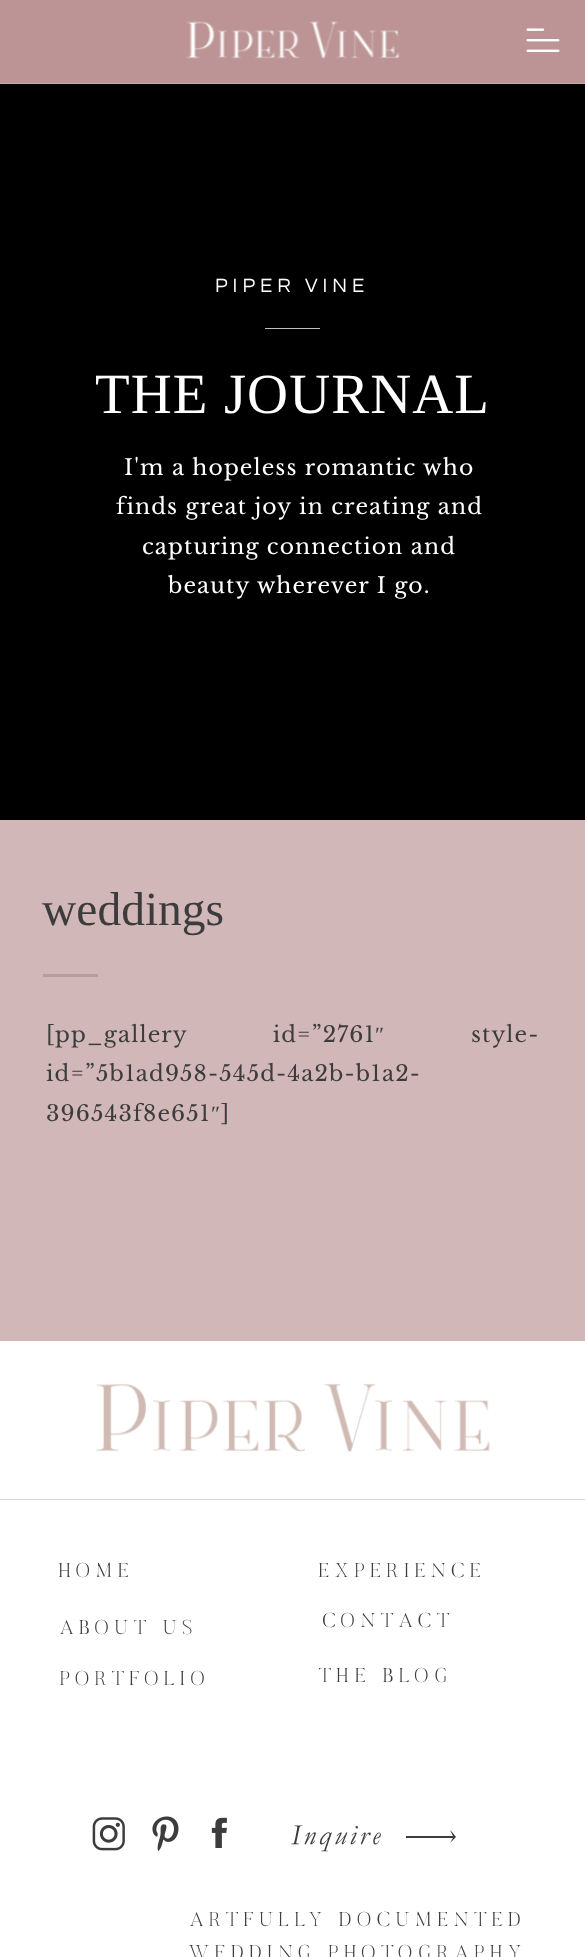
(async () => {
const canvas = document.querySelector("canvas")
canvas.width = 585
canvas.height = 1957
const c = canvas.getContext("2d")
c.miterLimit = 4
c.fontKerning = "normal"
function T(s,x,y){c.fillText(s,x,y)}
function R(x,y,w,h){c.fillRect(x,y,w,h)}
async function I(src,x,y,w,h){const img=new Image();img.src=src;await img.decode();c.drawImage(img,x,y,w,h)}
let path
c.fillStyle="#bc9495"
R(0,0,585,1957)
await I("1.png",186,21,214,38)
await I("2.png",526,28,34,24)
c.fillStyle="#c9a9aa"
R(0,83,585,1)
c.fillStyle="#000"
R(0,84,585,736)
c.letterSpacing="5px"
c.font="20.1px Questrial"
c.fillStyle="#fff"
T("PIPER VINE",215,292)
c.fillStyle="#bfbfbf"
R(265,328,55,1)
c.letterSpacing="1.1px"
c.font="56.75px Liberation Serif"
c.fillStyle="#fff"
T("THE JOURNAL",95,413)
c.font="21.9px Libre Baskerville"
T("I'm a hopeless romantic who",124,475)
T("finds great joy in creating and",116,514)
T("capturing connection and",142,554)
T("beauty wherever I go.",168,593)
c.fillStyle="#d2b7b8"
R(0,820,585,521)
c.letterSpacing="0px"
c.font="47.5px Liberation Serif"
c.fillStyle="#3c3c3c"
T("weddings",42,925)
c.fillStyle="#b49e9f"
R(43,974,55,3)
c.letterSpacing="1.1px"
c.wordSpacing="78px"
c.font="21.9px Libre Baskerville"
c.fillStyle="#3c3c3c"
T("[pp_gallery id=”2761",46,1042)
c.wordSpacing="0px"
c.font="21.9px Liberation Serif"
T("″",375,1042)
c.font="21.9px Libre Baskerville"
T("style-",471,1042)
T("id=”5b1ad958-545d-4a2b-b1a2-",46,1081)
T("396543f8e651",46,1121)
c.font="21.9px Liberation Serif"
T("″",211,1121)
c.font="21.9px Libre Baskerville"
T("]",221,1121)
c.fillStyle="#fff"
R(0,1341,585,616)
await I("3.png",96,1383,394,69)
c.fillStyle="#d8d8d8"
R(0,1499,585,1)
c.letterSpacing="5px"
c.font="20.1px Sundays"
c.fillStyle="#3c3c3c"
T("HOME",58,1577)
T("EXPERIENCE",318,1577)
T("ABOUT US",59,1634)
T("CONTACT",322,1627)
T("PORTFOLIO",59,1685)
T("THE BLOG",318,1682)
await I("4.png",92,1817,33,34)
await I("5.png",152,1816,27,35)
await I("6.png",211,1817,16,31)
c.letterSpacing="3px"
c.font="italic 29px Garamond"
T("Inquire",291,1844)
path = new Path2D("M450 1830l3 6h-47v2h47l-3 5l1-1l5-5l-4-5z")
c.fill(path)
c.letterSpacing="5px"
c.font="20.1px Sundays"
T("ARTFULLY DOCUMENTED",189,1926)
T("WEDDING PHOTOGRAPHY",188,1959)
})()
